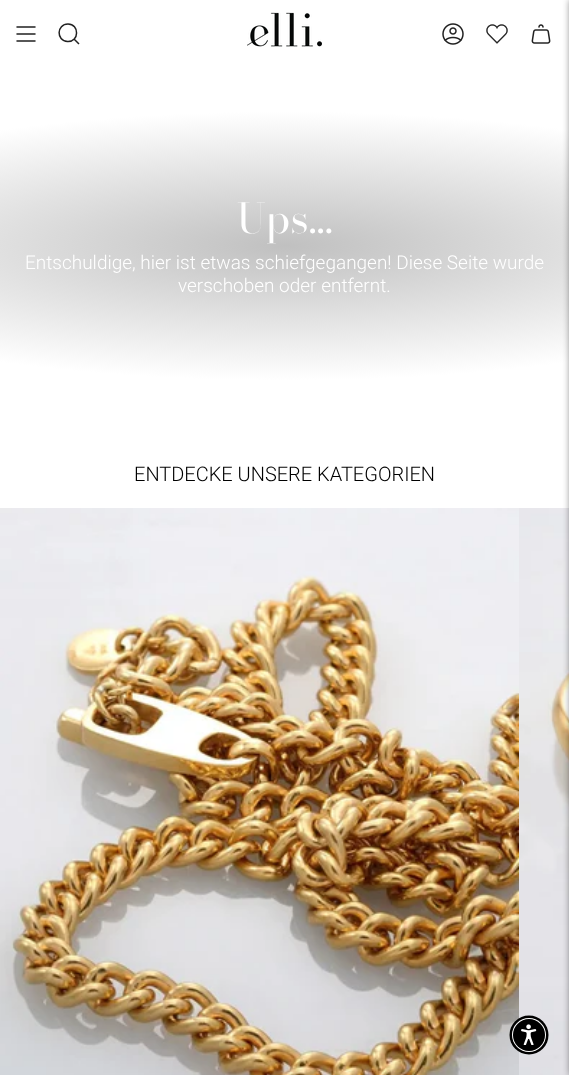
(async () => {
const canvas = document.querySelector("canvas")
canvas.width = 569
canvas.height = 1075
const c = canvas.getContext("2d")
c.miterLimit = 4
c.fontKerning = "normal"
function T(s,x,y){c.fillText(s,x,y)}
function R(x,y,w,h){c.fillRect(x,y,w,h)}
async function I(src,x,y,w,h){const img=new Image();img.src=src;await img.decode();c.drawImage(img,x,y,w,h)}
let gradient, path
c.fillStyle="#fff"
R(0,0,569,1075)
path = new Path2D("M17 27h18m-18 7h18m-18 7h18")
c.strokeStyle="#212121"
c.lineWidth=1.5
c.lineCap="round"
c.lineJoin="round"
c.stroke(path)
path = new Path2D("M68 24c11.5 0 11.5 18-.5 17.5c-11.5-.5-11-17.5 .5-17.5zm6 15l5 5")
c.lineCap="butt"
c.lineJoin="miter"
c.stroke(path)
await I("1.png",247,12,75,35)
await I("2.png",442,23,22,22)
await I("3.png",486,24,22,20)
await I("4.png",531,24,20,20)
gradient = c.createRadialGradient(285,1031.41,0,285,1031.41,805)
gradient.addColorStop(0,"#c0c0c0")
gradient.addColorStop(.7,"#fff")
c.fillStyle = gradient
c.beginPath()
c.ellipse(285,246,569,136,0,0,7)
c.save()
c.clip()
c.scale(1,192 / 805)
c.fillRect(0,0,569,4508)
c.restore()
c.font="41px Bodoni Moda"
c.fillStyle="#fff"
T("Ups...",237,233)
c.font="300 19px Roboto"
T("Entschuldige, hier ist etwas schiefgegangen! Diese Seite wurde",25,269)
T("verschoben oder entfernt.",178,292)
c.font="300 20px Roboto"
c.fillStyle="#000"
T("ENTDECKE UNSERE KATEGORIEN",134,481)
await I("5.png",0,508,519,567)
await I("6.png",519,508,50,567)
c.fillStyle="#00000080"
c.filter="blur(3.5px)"
c.beginPath()
c.rect(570,0,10,1075)
c.fill()
c.filter="none"
c.fillStyle="#000"
c.beginPath()
c.arc(529,1035,19.5,0,7)
c.fill()
c.fillStyle="#fff"
c.beginPath()
c.arc(529,1035,17,0,7)
c.fill()
c.fillStyle="#000"
c.beginPath()
c.arc(529,1035,16,0,7)
c.fill()
await I("7.png",521,1024,16,21)
})()
